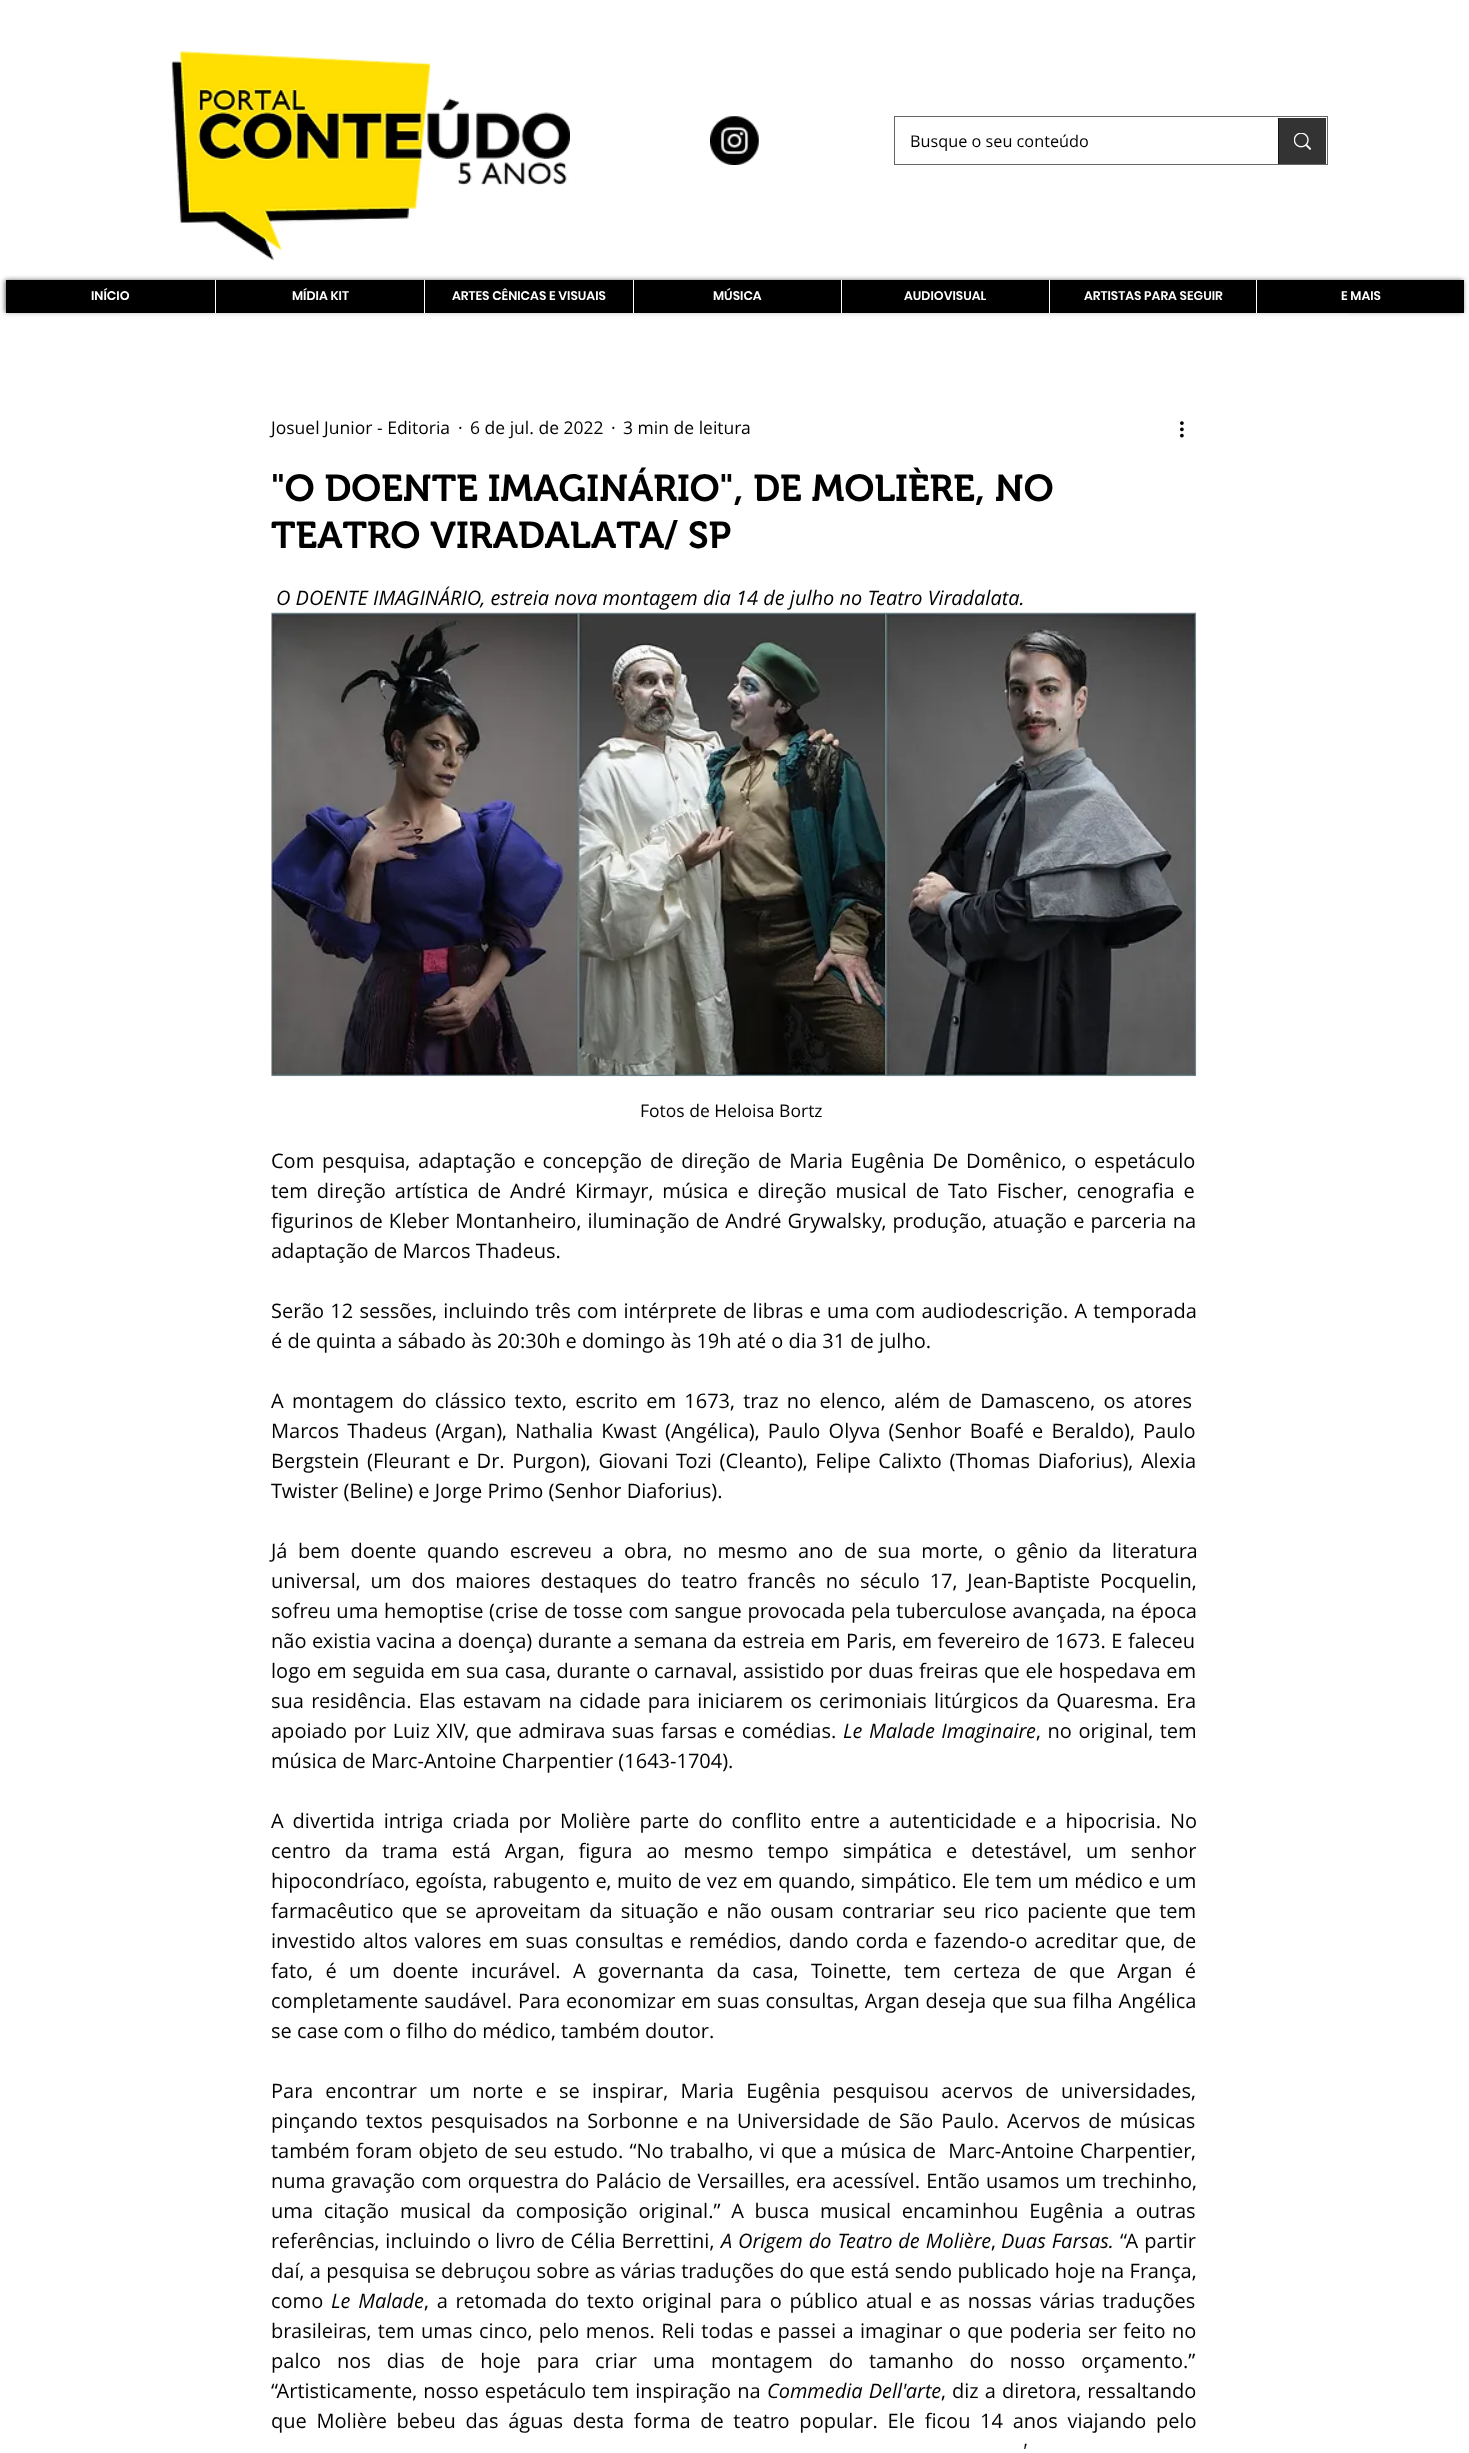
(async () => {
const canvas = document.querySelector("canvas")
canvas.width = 1469
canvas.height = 2453
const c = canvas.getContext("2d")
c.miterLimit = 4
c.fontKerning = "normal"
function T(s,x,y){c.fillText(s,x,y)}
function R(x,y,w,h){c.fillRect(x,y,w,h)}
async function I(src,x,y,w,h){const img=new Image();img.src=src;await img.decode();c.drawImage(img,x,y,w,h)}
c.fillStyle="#fff"
R(0,0,1469,2453)
await I("1.png",171,51,399,210)
await I("2.png",710,116,49,49)
c.strokeStyle="#666"
c.strokeRect(894.5,116.5,433,48)
c.font="16.25px Open Sans"
c.fillStyle="#000"
T("Busque o seu conteúdo",910,147)
c.fillStyle="#333"
R(1279,118,47,46)
c.fillStyle="#141414"
R(1278,118,1,46)
await I("3.png",1294,133,17,17)
c.fillStyle="#00000099"
c.filter="blur(2.5px)"
c.beginPath()
c.rect(5,280,1458,33)
c.fill()
c.filter="none"
c.fillStyle="#000"
R(6,280,1458,33)
c.font="600 12.5px Poppins"
c.fillStyle="#fff"
T("INÍCIO",91,300)
R(215,280,1,33)
T("MÍDIA KIT",292,300)
R(424,280,1,33)
T("ARTES CÊNICAS E VISUAIS",452,300)
R(633,280,1,33)
T("MÚSICA",713,300)
R(841,280,1,33)
T("AUDIOVISUAL",904,300)
R(1049,280,1,33)
T("ARTISTAS PARA SEGUIR",1084,300)
R(1256,280,1,33)
T("E MAIS",1341,300)
c.fillStyle="#ffffff80"
R(2,313,1464,5)
c.fillStyle="#ffffff38"
R(120,313,1228,3)
c.font="17.5px Open Sans"
c.fillStyle="#000"
T("Josuel Junior - Editoria",271,434)
T("·",458,434)
T("6 de jul. de 2022",470,434)
T("·",611,434)
T("3 min de leitura",623,434)
await I("4.png",1180,421,4,17)
c.font="600 37.5px 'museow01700'"
T("\"O DOENTE IMAGINÁRIO\", DE MOLIÈRE, NO",271,501)
T("TEATRO VIRADALATA/ SP",271,548)
c.font="italic 20px Open Sans"
T("O DOENTE IMAGINÁRIO, estreia nova montagem dia 14 de julho no Teatro Viradalata.",276,605)
await I("5.png",271,612,926,465)
c.font="17.5px Open Sans"
T("Fotos de Heloisa Bortz",640,1117)
c.wordSpacing="2.6px"
c.font="20px Open Sans"
T("Com pesquisa, adaptação e concepção de direção de Maria Eugênia De Domênico, o espetáculo",271,1168)
c.wordSpacing="3.75px"
T("tem direção artística de André Kirmayr, música e direção musical de Tato Fischer, cenografia e",271,1198)
c.wordSpacing="0.9px"
T("figurinos de Kleber Montanheiro, iluminação de André Grywalsky, produção, atuação e parceria na",271,1228)
c.wordSpacing="0px"
T("adaptação de Marcos Thadeus.",271,1258)
c.wordSpacing="1px"
T("Serão 12 sessões, incluindo três com intérprete de libras e uma com audiodescrição. A temporada",271,1318)
c.wordSpacing="0px"
T("é de quinta a sábado às 20:30h e domingo às 19h até o dia 31 de julho.",271,1348)
c.wordSpacing="3.1px"
T("A montagem do clássico texto, escrito em 1673, traz no elenco, além de Damasceno, os atores",271,1408)
c.wordSpacing="3px"
T("Marcos Thadeus (Argan), Nathalia Kwast (Angélica), Paulo Olyva (Senhor Boafé e Beraldo), Paulo",271,1438)
c.wordSpacing="2.5px"
T("Bergstein (Fleurant e Dr. Purgon), Giovani Tozi (Cleanto), Felipe Calixto (Thomas Diaforius), Alexia",271,1468)
c.wordSpacing="0px"
T("Twister (Beline) e Jorge Primo (Senhor Diaforius).",271,1498)
c.wordSpacing="5.25px"
T("Já bem doente quando escreveu a obra, no mesmo ano de sua morte, o gênio da literatura",271,1558)
c.wordSpacing="4.75px"
T("universal, um dos maiores destaques do teatro francês no século 17, Jean-Baptiste Pocquelin,",271,1588)
c.wordSpacing="0.5px"
T("sofreu uma hemoptise (crise de tosse com sangue provocada pela tuberculose avançada, na época",271,1618)
c.wordSpacing="0.3px"
T("não existia vacina a doença) durante a semana da estreia em Paris, em fevereiro de 1673. E faleceu",271,1648)
c.wordSpacing="0.5px"
T("logo em seguida em sua casa, durante o carnaval, assistido por duas freiras que ele hospedava em",271,1678)
c.wordSpacing="2px"
T("sua residência. Elas estavam na cidade para iniciarem os cerimoniais litúrgicos da Quaresma. Era",271,1708)
c.wordSpacing="1.4px"
T("apoiado por Luiz XIV, que admirava suas farsas e comédias.",271,1738)
c.font="italic 20px Open Sans"
T("Le Malade Imaginaire",843,1738)
c.font="20px Open Sans"
T(", no original, tem",1036,1738)
c.wordSpacing="0px"
T("música de Marc-Antoine Charpentier (1643-1704).",271,1768)
c.wordSpacing="3.75px"
T("A divertida intriga criada por Molière parte do conflito entre a autenticidade e a hipocrisia. No",271,1828)
c.wordSpacing="8.75px"
T("centro da trama está Argan, figura ao mesmo tempo simpática e detestável,",271,1858)
T("um senhor",1086,1858)
c.wordSpacing="0.4px"
T("hipocondríaco, egoísta, rabugento e, muito de vez em quando, simpático. Ele tem um médico e um",271,1888)
c.wordSpacing="3.1px"
T("farmacêutico que se aproveitam da situação e não ousam contrariar seu rico paciente que tem",271,1918)
c.wordSpacing="1.9px"
T("investido altos valores em suas consultas e remédios, dando corda e fazendo-o acreditar que, de",271,1948)
c.wordSpacing="7.25px"
T("fato, é um doente incurável. A governanta da casa, Toinette, tem certeza de que Argan é",271,1978)
c.wordSpacing="0.7px"
T("completamente saudável. Para economizar em suas consultas, Argan deseja que sua filha Angélica",271,2008)
c.wordSpacing="0px"
T("se case com o filho do médico, também doutor.",271,2038)
c.wordSpacing="7.1px"
T("Para encontrar um norte e se inspirar, Maria Eugênia pesquisou acervos de universidades,",271,2098)
c.wordSpacing="2.75px"
T("pinçando textos pesquisados na Sorbonne e na Universidade de São Paulo. Acervos de músicas",271,2128)
c.wordSpacing="1px"
T("também foram objeto de seu estudo. “No trabalho, vi que a música de  Marc-Antoine Charpentier",271,2158)
c.wordSpacing="0px"
T(",",1191,2158)
c.wordSpacing="1px"
T("numa gravação com orquestra do Palácio de Versailles, era acessível. Então usamos um trechinho,",271,2188)
c.wordSpacing="5.5px"
T("uma citação musical da composição original.” A busca musical encaminhou Eugênia a outras",271,2218)
c.wordSpacing="0.75px"
T("referências, incluindo o livro de Célia Berrettini,",271,2248)
c.font="italic 20px Open Sans"
T("A Origem do Teatro de Molière",721,2248)
c.wordSpacing="0px"
c.font="20px Open Sans"
T(",",991,2248)
c.wordSpacing="0.75px"
c.font="italic 20px Open Sans"
T("Duas Farsas.",1001,2248)
c.font="20px Open Sans"
T("“A partir",1120,2248)
c.wordSpacing="0.2px"
T("daí, a pesquisa se debruçou sobre as várias traduções do que está sendo publicado hoje na França,",271,2278)
c.wordSpacing="0px"
T("como",271,2308)
c.wordSpacing="2.6px"
c.font="italic 20px Open Sans"
T("Le Malade",331,2308)
c.font="20px Open Sans"
T(", a retomada do texto original para o público atual e as nossas várias traduções",424,2308)
c.wordSpacing="1.2px"
T("brasileiras, tem umas cinco, pelo menos. Reli todas e passei a imaginar o que poderia ser feito no",271,2338)
c.wordSpacing="10.75px"
T("palco nos dias de hoje para criar uma montagem do tamanho do nosso orçamento.”",271,2368)
c.wordSpacing="0.9px"
T("“Artisticamente, nosso espetáculo tem inspiração na",271,2398)
c.wordSpacing="1px"
c.font="italic 20px Open Sans"
T("Commedia Dell'arte",767,2398)
c.wordSpacing="0.9px"
c.font="20px Open Sans"
T(", diz a diretora, ressaltando",941,2398)
c.wordSpacing="4.5px"
T("que Molière bebeu das águas desta forma de teatro popular. Ele ficou 14 anos viajando pelo",271,2428)
c.wordSpacing="0px"
c.font="italic 20px Open Sans"
T("'",1022,2458)
})()
